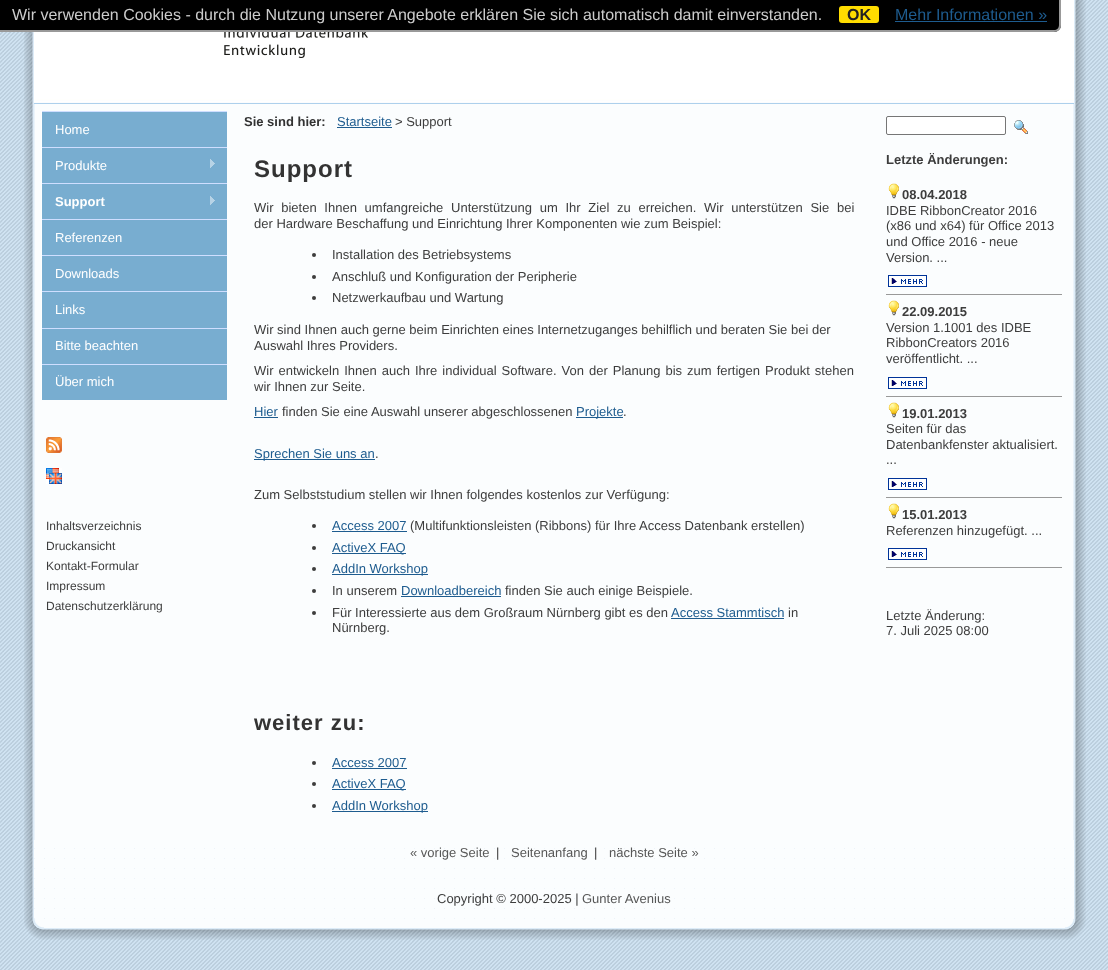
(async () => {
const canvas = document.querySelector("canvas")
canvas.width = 1108
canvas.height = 970
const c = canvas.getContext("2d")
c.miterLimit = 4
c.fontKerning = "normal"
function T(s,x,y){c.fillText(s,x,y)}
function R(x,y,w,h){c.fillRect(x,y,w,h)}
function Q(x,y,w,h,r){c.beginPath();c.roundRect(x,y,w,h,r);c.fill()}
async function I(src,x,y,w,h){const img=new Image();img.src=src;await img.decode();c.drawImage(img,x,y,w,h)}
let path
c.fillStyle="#fff"
R(0,0,1108,970)
await I("1.png",0,0,1108,970)
await I("4.png",24,32,1011,857)
await I("5.png",1035,0,51,889)
await I("2.png",34,0,1040,104)
c.fillStyle="#000"
c.beginPath()
c.roundRect(0,0,1061,32,[0,0,7,0])
c.fill()
c.fillStyle="#999"
path = new Path2D("M0 0h1061v25c0 4-3 7-7 7h-1054zm0 0h1059v25c0 3-2 5-5 5h-1054z")
c.fill(path,"evenodd")
c.font="16px Liberation Sans"
c.fillStyle="#ccc"
T("Wir verwenden Cookies - durch die Nutzung unserer Angebote erklären Sie sich automatisch damit einverstanden.",12,20)
c.fillStyle="#fd0"
Q(839,6,40,17,3)
c.font="bold 16px Liberation Sans"
c.fillStyle="#222"
T("OK",847,20)
c.font="16px Liberation Sans"
c.fillStyle="#1e5c8f"
T("Mehr Informationen »",895,20)
R(895,21,152,1)
await I("3.png",224,32,144,26)
c.fillStyle="#78add0"
R(42,112,185,35)
c.fillStyle="#cfdeff"
R(41,111,186,1)
c.fillStyle="#fff"
R(41,111,1,36)
c.font="13px Liberation Sans"
T("Home",55,134)
c.fillStyle="#78add0"
R(42,148,185,35)
c.fillStyle="#cfdeff"
R(41,147,186,1)
c.fillStyle="#fff"
R(41,147,1,36)
T("Produkte",55,170)
await I("6.png",210,159,5,9)
c.fillStyle="#78add0"
R(42,184,185,35)
c.fillStyle="#cfdeff"
R(41,183,186,1)
c.fillStyle="#fff"
R(41,183,1,36)
c.font="bold 13px Liberation Sans"
T("Support",55,206)
await I("6.png",210,196,5,9)
c.fillStyle="#78add0"
R(42,220,185,35)
c.fillStyle="#cfdeff"
R(41,219,186,1)
c.fillStyle="#fff"
R(41,219,1,36)
c.font="13px Liberation Sans"
T("Referenzen",55,242)
c.fillStyle="#78add0"
R(42,256,185,35)
c.fillStyle="#cfdeff"
R(41,255,186,1)
c.fillStyle="#fff"
R(41,255,1,36)
T("Downloads",55,278)
c.fillStyle="#78add0"
R(42,292,185,36)
c.fillStyle="#cfdeff"
R(41,291,186,1)
c.fillStyle="#fff"
R(41,291,1,37)
T("Links",55,314)
c.fillStyle="#78add0"
R(42,329,185,35)
c.fillStyle="#cfdeff"
R(41,328,186,1)
c.fillStyle="#fff"
R(41,328,1,36)
T("Bitte beachten",55,350)
c.fillStyle="#78add0"
R(42,365,185,35)
c.fillStyle="#cfdeff"
R(41,364,186,1)
c.fillStyle="#fff"
R(41,364,1,36)
T("Über mich",55,386)
await I("7.png",46,437,16,16)
await I("8.png",46,468,16,16)
c.font="12px Liberation Sans"
c.fillStyle="#3d3d3d"
T("Inhaltsverzeichnis",46,530)
T("Druckansicht",46,550)
T("Kontakt-Formular",46,570)
T("Impressum",46,590)
T("Datenschutzerklärung",46,610)
c.font="bold 13px Liberation Sans"
c.fillStyle="#333"
T("Sie sind hier:",244,126)
c.font="13px Liberation Sans"
c.fillStyle="#1e5c8f"
T("Startseite",337,126)
R(337,127,55,1)
c.fillStyle="#3d3d3d"
T("> Support",395,126)
c.letterSpacing="1px"
c.font="bold 24px Liberation Sans"
c.fillStyle="#333"
T("Support",254,177)
c.letterSpacing="0px"
c.wordSpacing="4.1px"
c.font="13px Liberation Sans"
c.fillStyle="#3d3d3d"
T("Wir bieten Ihnen umfangreiche Unterstützung um Ihr Ziel zu erreichen. Wir unterstützen Sie bei",254,212)
c.wordSpacing="0px"
T("der Hardware Beschaffung und Einrichtung Ihrer Komponenten wie zum Beispiel:",254,228)
c.beginPath()
c.arc(314,255,2,0,7)
c.fill()
T("Installation des Betriebsystems",332,259)
c.beginPath()
c.arc(314,277,2,0,7)
c.fill()
T("Anschluß und Konfiguration der Peripherie",332,281)
c.beginPath()
c.arc(314,298,2,0,7)
c.fill()
T("Netzwerkaufbau und Wartung",332,302)
T("Wir sind Ihnen auch gerne beim Einrichten eines Internetzuganges behilflich und beraten Sie bei der",254,334)
T("Auswahl Ihres Providers.",254,350)
c.wordSpacing="1.4px"
T("Wir entwickeln Ihnen auch Ihre individual Software. Von der Planung bis zum fertigen Produkt stehen",254,375)
c.wordSpacing="0px"
T("wir Ihnen zur Seite.",254,391)
c.fillStyle="#1e5c8f"
T("Hier",254,416)
R(254,417,24,1)
c.fillStyle="#3d3d3d"
T("finden Sie eine Auswahl unserer abgeschlossenen",282,416)
c.fillStyle="#1e5c8f"
R(576,417,47,1)
T("Projekte",576,416)
c.fillStyle="#3d3d3d"
T(".",623,416)
c.fillStyle="#1e5c8f"
R(254,459,121,1)
T("Sprechen Sie uns an",254,458)
c.fillStyle="#3d3d3d"
T(".",375,458)
T("Zum Selbststudium stellen wir Ihnen folgendes kostenlos zur Verfügung:",254,499)
c.beginPath()
c.arc(314,526,2,0,7)
c.fill()
c.fillStyle="#1e5c8f"
T("Access 2007",332,530)
R(332,531,75,1)
c.fillStyle="#3d3d3d"
T("(Multifunktionsleisten (Ribbons) für Ihre Access Datenbank erstellen)",410,530)
c.beginPath()
c.arc(314,548,2,0,7)
c.fill()
c.fillStyle="#1e5c8f"
R(332,553,74,1)
T("ActiveX FAQ",332,552)
c.fillStyle="#3d3d3d"
c.beginPath()
c.arc(314,569,2,0,7)
c.fill()
c.fillStyle="#1e5c8f"
R(332,574,96,1)
T("AddIn Workshop",332,573)
c.fillStyle="#3d3d3d"
c.beginPath()
c.arc(314,591,2,0,7)
c.fill()
T("In unserem",332,595)
c.fillStyle="#1e5c8f"
T("Downloadbereich",401,595)
R(401,596,100,1)
c.fillStyle="#3d3d3d"
T("finden Sie auch einige Beispiele.",505,595)
c.beginPath()
c.arc(314,613,2,0,7)
c.fill()
T("Für Interessierte aus dem Großraum Nürnberg gibt es den",332,617)
c.fillStyle="#1e5c8f"
T("Access Stammtisch",671,617)
R(671,618,113,1)
c.fillStyle="#3d3d3d"
T("in",788,617)
T("Nürnberg.",332,632)
c.letterSpacing="1px"
c.font="bold 22px Liberation Sans"
c.fillStyle="#333"
T("weiter zu:",254,730)
c.fillStyle="#3d3d3d"
c.beginPath()
c.arc(314,763,2,0,7)
c.fill()
c.letterSpacing="0px"
c.font="13px Liberation Sans"
c.fillStyle="#1e5c8f"
T("Access 2007",332,767)
R(332,768,75,1)
c.fillStyle="#3d3d3d"
c.beginPath()
c.arc(314,784,2,0,7)
c.fill()
c.fillStyle="#1e5c8f"
R(332,789,74,1)
T("ActiveX FAQ",332,788)
c.fillStyle="#3d3d3d"
c.beginPath()
c.arc(314,806,2,0,7)
c.fill()
c.fillStyle="#1e5c8f"
R(332,811,96,1)
T("AddIn Workshop",332,810)
c.fillStyle="#fff"
c.beginPath()
c.roundRect(886.5,116.5,119,18,1.5)
c.fill()
c.strokeStyle="#767676"
c.stroke()
await I("9.png",1014,120,14,14)
c.font="bold 13px Liberation Sans"
c.fillStyle="#3d3d3d"
T("Letzte Änderungen:",886,164)
await I("10.png",888,183,11,16)
T("08.04.2018",902,199)
c.font="13px Liberation Sans"
T("IDBE RibbonCreator 2016",886,215)
T("(x86 und x64) für Office 2013",886,230)
T("und Office 2016 - neue",886,246)
T("Version. ...",886,262)
await I("11.png",888,275,39,12)
c.fillStyle="#999"
R(886,294,176,1)
await I("10.png",888,300,11,16)
c.font="bold 13px Liberation Sans"
c.fillStyle="#3d3d3d"
T("22.09.2015",902,316)
c.font="13px Liberation Sans"
T("Version 1.1001 des IDBE",886,332)
T("RibbonCreators 2016",886,347)
T("veröffentlicht. ...",886,363)
await I("11.png",888,377,39,12)
c.fillStyle="#999"
R(886,396,176,1)
await I("10.png",888,402,11,16)
c.font="bold 13px Liberation Sans"
c.fillStyle="#3d3d3d"
T("19.01.2013",902,418)
c.font="13px Liberation Sans"
T("Seiten für das",886,433)
T("Datenbankfenster aktualisiert.",886,449)
T("...",886,464)
await I("11.png",888,478,39,12)
c.fillStyle="#999"
R(886,497,176,1)
await I("10.png",888,503,11,16)
c.font="bold 13px Liberation Sans"
c.fillStyle="#3d3d3d"
T("15.01.2013",902,519)
c.font="13px Liberation Sans"
T("Referenzen hinzugefügt. ...",886,535)
await I("11.png",888,548,39,12)
c.fillStyle="#999"
R(886,567,176,1)
c.fillStyle="#3d3d3d"
T("Letzte Änderung:",886,620)
T("7. Juli 2025 08:00",886,635)
await I("15.png",24,889,1011,51)
await I("16.png",1035,889,51,51)
await I("12.png",34,840,1040,79)
c.fillStyle="#575757"
T("« vorige Seite",410,857)
c.fillStyle="#3d3d3d"
T("|",496,857)
c.fillStyle="#575757"
T("Seitenanfang",511,857)
c.fillStyle="#3d3d3d"
T("|",594,857)
c.fillStyle="#575757"
T("nächste Seite »",609,857)
c.fillStyle="#3d3d3d"
T("Copyright © 2000-2025 |",437,903)
c.fillStyle="#575757"
T("Gunter Avenius",582,903)
await I("13.png",34,924,1031,4)
await I("14.png",1070,924,4,4)
})()
